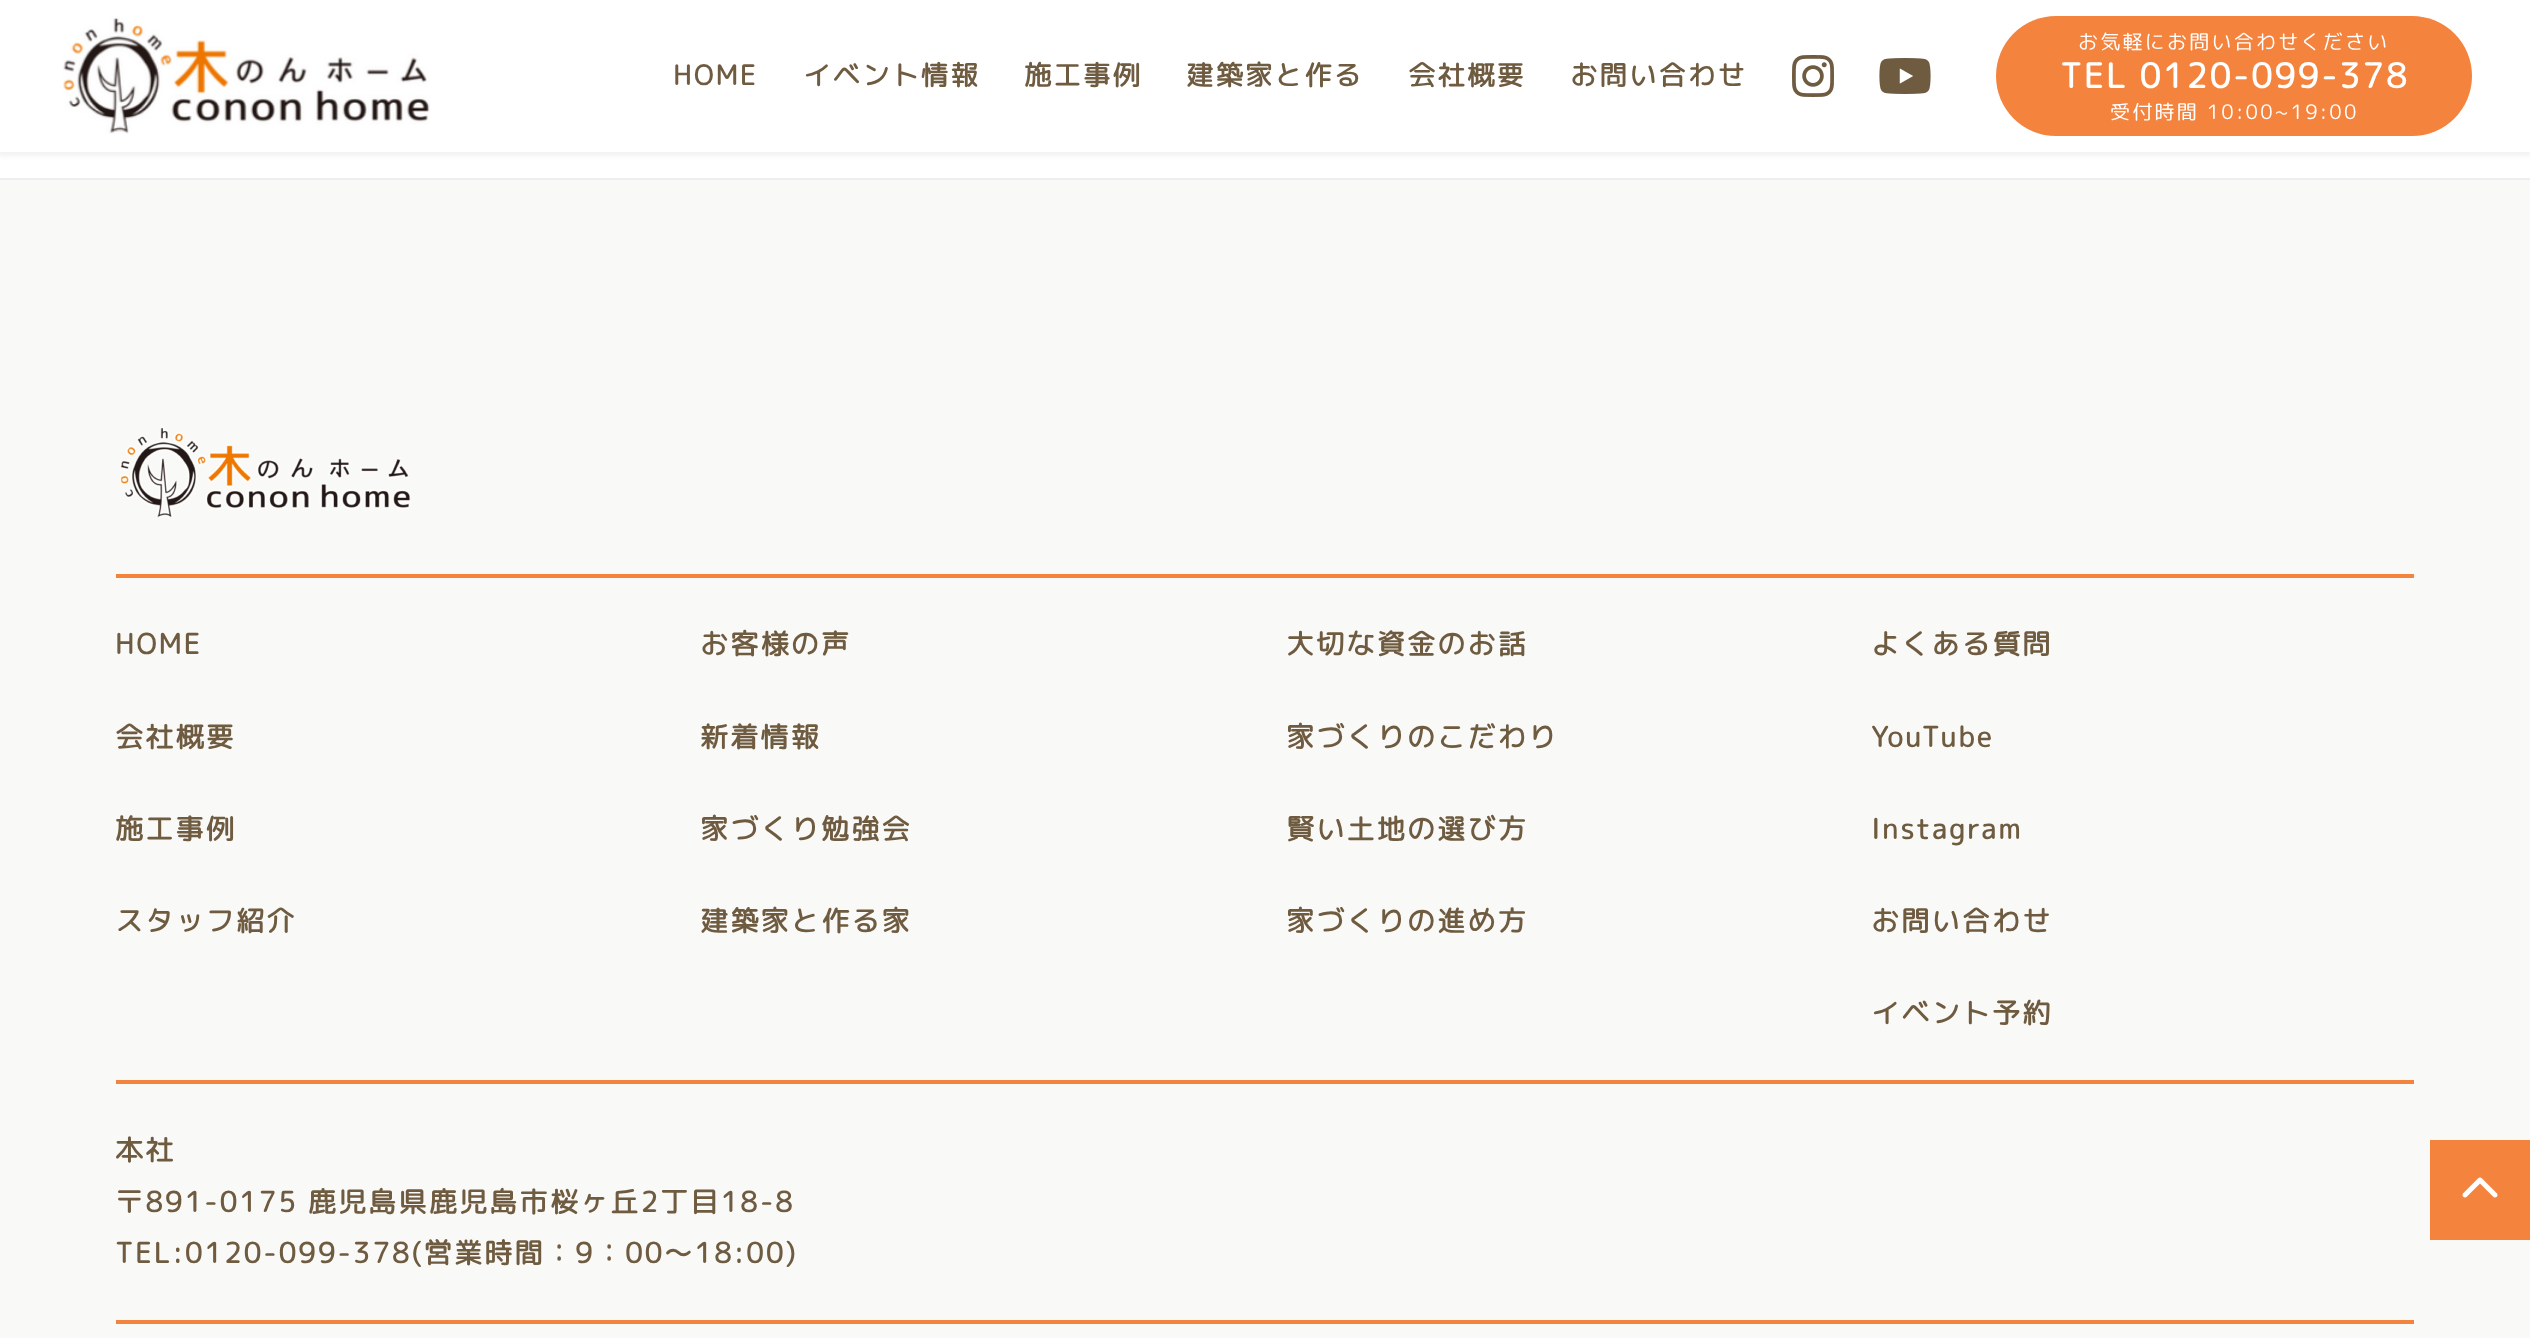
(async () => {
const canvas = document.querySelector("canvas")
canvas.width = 2530
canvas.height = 1338
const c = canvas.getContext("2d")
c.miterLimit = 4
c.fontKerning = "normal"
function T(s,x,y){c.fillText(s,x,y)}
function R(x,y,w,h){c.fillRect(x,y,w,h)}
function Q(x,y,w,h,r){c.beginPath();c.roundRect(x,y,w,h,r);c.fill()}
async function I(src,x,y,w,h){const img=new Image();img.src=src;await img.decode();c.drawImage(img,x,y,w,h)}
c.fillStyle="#fff"
R(0,0,2530,1338)
c.fillStyle="#0000000d"
c.filter="blur(2px)"
c.beginPath()
c.rect(-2,0,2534,156)
c.fill()
c.filter="none"
c.fillStyle="#fff"
R(0,0,2530,152)
await I("1.png",63,17,367,117)
c.letterSpacing="2.25px"
c.font="bold 27.25px 'Rounded Mplus 1c'"
c.fillStyle="#6f5b40"
T("HOME",673,85)
T("イベント情報",803,85)
T("施工事例",1024,85)
T("建築家と作る",1186,85)
T("会社概要",1408,85)
T("お問い合わせ",1570,85)
await I("2.png",1792,55,42,42)
await I("3.png",1879,58,52,36)
c.fillStyle="#f4833d"
Q(1996,16,476,120,60)
c.font="20px 'Rounded Mplus 1c'"
c.fillStyle="#fff"
T("お気軽にお問い合わせください",2078,49)
c.font="bold 34px 'Rounded Mplus 1c'"
T("TEL 0120-099-378",2060,88)
c.font="20px 'Rounded Mplus 1c'"
T("受付時間 10:00~19:00",2110,119)
c.fillStyle="#eee"
R(0,178,2530,2)
c.fillStyle="#f9f9f7"
R(0,180,2530,1158)
await I("4.png",120,427,291,91)
c.fillStyle="#f4833d"
R(116,574,2298,4)
c.font="bold 28px 'Rounded Mplus 1c'"
c.fillStyle="#6f5b40"
T("HOME",115,654)
T("お客様の声",700,654)
T("大切な資金のお話",1286,654)
T("よくある質問",1871,654)
T("会社概要",115,747)
T("新着情報",700,747)
T("家づくりのこだわり",1286,747)
T("YouTube",1871,747)
T("施工事例",115,839)
T("家づくり勉強会",700,839)
T("賢い土地の選び方",1286,839)
T("Instagram",1871,839)
T("スタッフ紹介",115,931)
T("建築家と作る家",700,931)
T("家づくりの進め方",1286,931)
T("お問い合わせ",1871,931)
T("イベント予約",1871,1023)
c.fillStyle="#f4833d"
R(116,1080,2298,4)
c.fillStyle="#6f5b40"
T("本社",115,1160)
T("〒891-0175 鹿児島県鹿児島市桜ヶ丘2丁目18-8",115,1212)
T("TEL:0120-099-378(営業時間：9：00～18:00)",115,1263)
c.fillStyle="#f4833d"
R(116,1320,2298,4)
R(2430,1140,100,100)
await I("5.png",2462,1177,36,21)
})()
